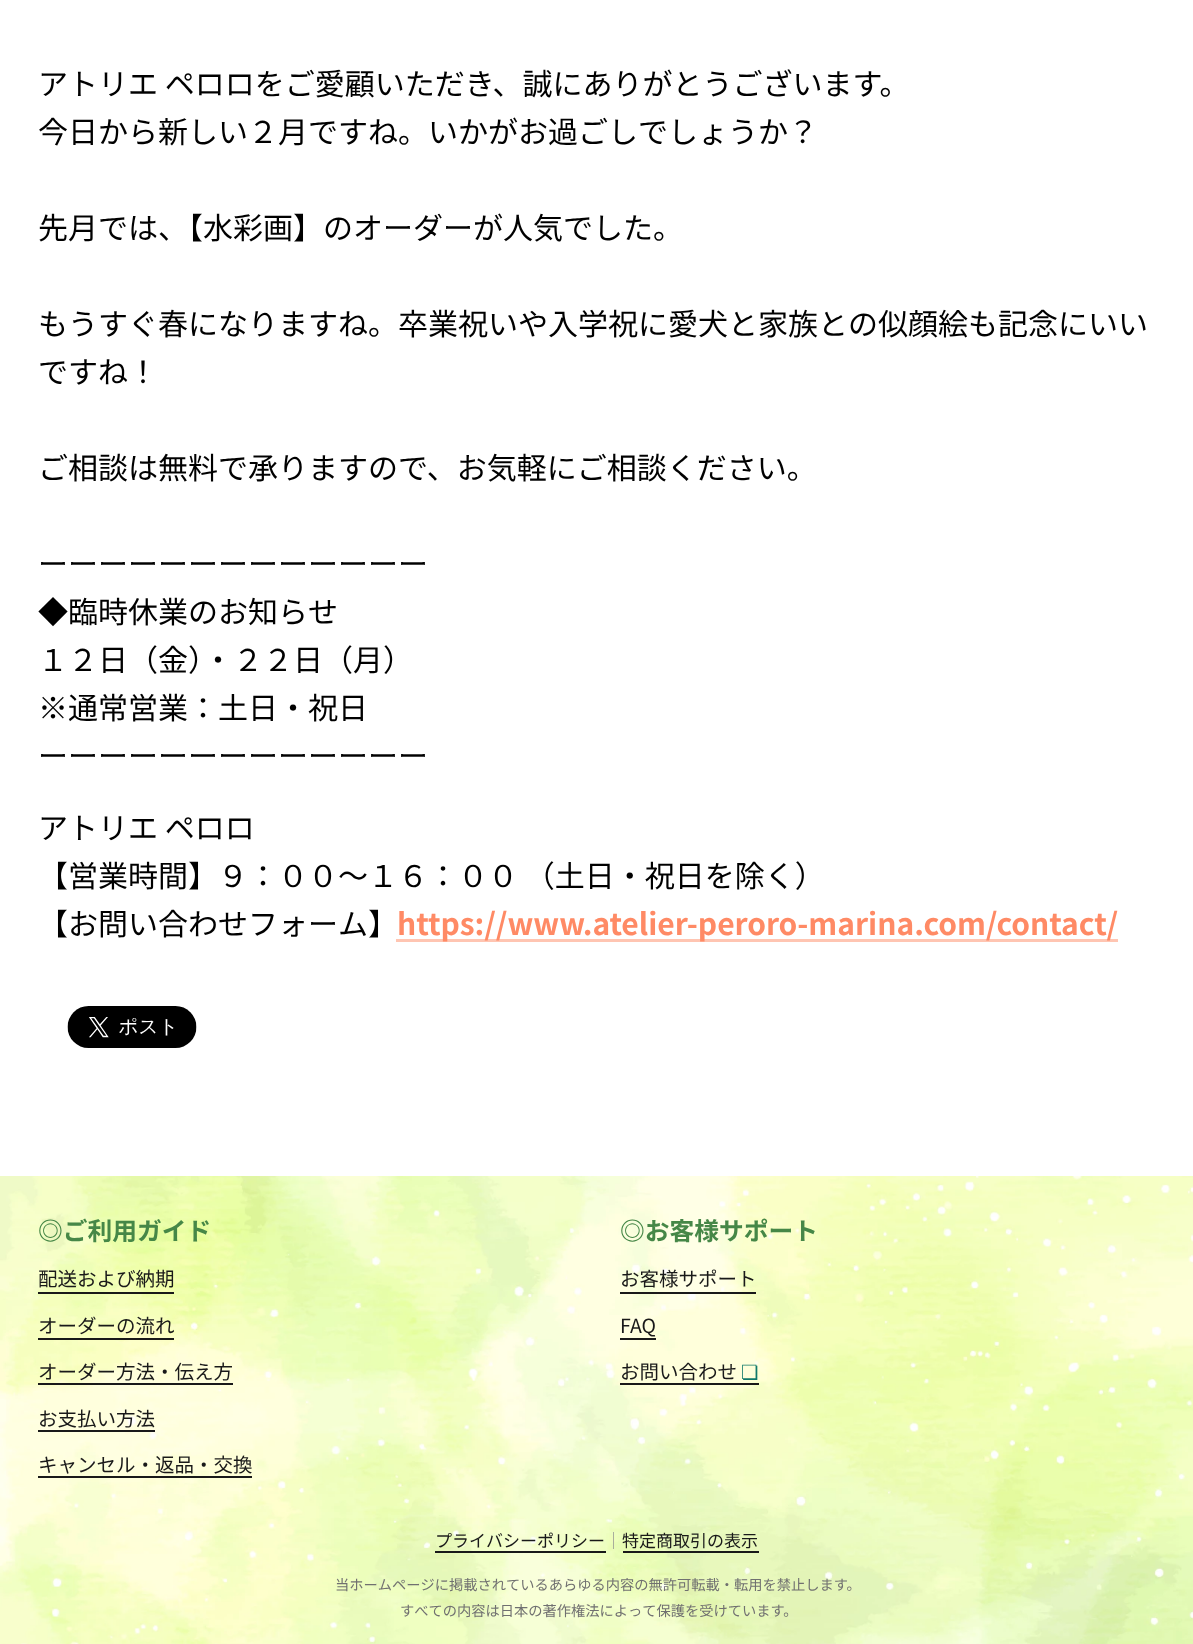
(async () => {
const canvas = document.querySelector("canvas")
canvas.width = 1193
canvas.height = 1644
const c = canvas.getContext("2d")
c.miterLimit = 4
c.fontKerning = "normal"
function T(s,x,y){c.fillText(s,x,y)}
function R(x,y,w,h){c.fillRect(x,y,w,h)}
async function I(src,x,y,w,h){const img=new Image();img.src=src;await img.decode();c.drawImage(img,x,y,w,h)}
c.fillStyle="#fff"
R(0,0,1193,1644)
c.font="30px Noto Sans JP"
c.fillStyle="#000"
T("アトリエ ペロロをご愛顧いただき、誠にありがとうございます。",38,95)
T("今日から新しい２月ですね。いかがお過ごしでしょうか？",38,143)
T("先月では、【水彩画】のオーダーが人気でした。",38,239)
T("もうすぐ春になりますね。卒業祝いや入学祝に愛犬と家族との似顔絵も記念にいい",38,335)
T("ですね！",38,383)
T("ご相談は無料で承りますので、お気軽にご相談ください。",38,479)
T("ーーーーーーーーーーーーー",38,575)
T("◆臨時休業のお知らせ",38,623)
T("１２日（金）・２２日（月）",38,671)
T("※通常営業：土日・祝日",38,719)
T("ーーーーーーーーーーーーー",38,767)
T("アトリエ ペロロ",38,839)
T("【営業時間】９：００～１６：００ （土日・祝日を除く）",38,887)
T("【お問い合わせフォーム】",38,935)
c.fillStyle="#ffc5b2"
R(396,939,722,3)
c.font="bold 30px Noto Sans JP"
c.fillStyle="#ff8a65"
T("https://www.atelier-peroro-marina.com/contact/",397,935)
await I("1.png",67,1006,130,42)
await I("2.png",0,1176,1193,468)
c.font="bold 24.75px Noto Sans JP"
c.fillStyle="#468747"
T("◎ご利用ガイド",38,1240)
c.font="19.5px Noto Sans JP"
c.fillStyle="#191919"
T("配送および納期",38,1286)
R(38,1292,136,2)
T("オーダーの流れ",38,1333)
R(38,1338,136,2)
T("オーダー方法・伝え方",38,1379)
R(38,1383,195,2)
T("お支払い方法",38,1426)
R(38,1430,117,2)
T("キャンセル・返品・交換",38,1472)
R(38,1476,214,2)
c.font="bold 24.75px Noto Sans JP"
c.fillStyle="#468747"
T("◎お客様サポート",620,1240)
c.font="19.5px Noto Sans JP"
c.fillStyle="#191919"
T("お客様サポート",620,1286)
R(620,1292,136,2)
T("FAQ",620,1333)
R(620,1338,36,2)
T("お問い合わせ",620,1379)
c.font="19.5px DejaVu Sans"
c.fillStyle="#10796a"
T("❏",741,1379)
c.fillStyle="#191919"
R(620,1383,139,2)
c.font="17px Noto Sans JP"
T("プライバシーポリシー",435,1547)
R(435,1551,171,2)
c.fillStyle="#919191"
T("｜",605,1547)
c.fillStyle="#191919"
T("特定商取引の表示",622,1547)
R(623,1551,136,2)
c.font="14.25px Noto Sans JP"
c.fillStyle="#707070"
T("当ホームページに掲載されているあらゆる内容の無許可転載・転用を禁止します。",335,1590)
T("すべての内容は日本の著作権法によって保護を受けています。",400,1616)
})()
